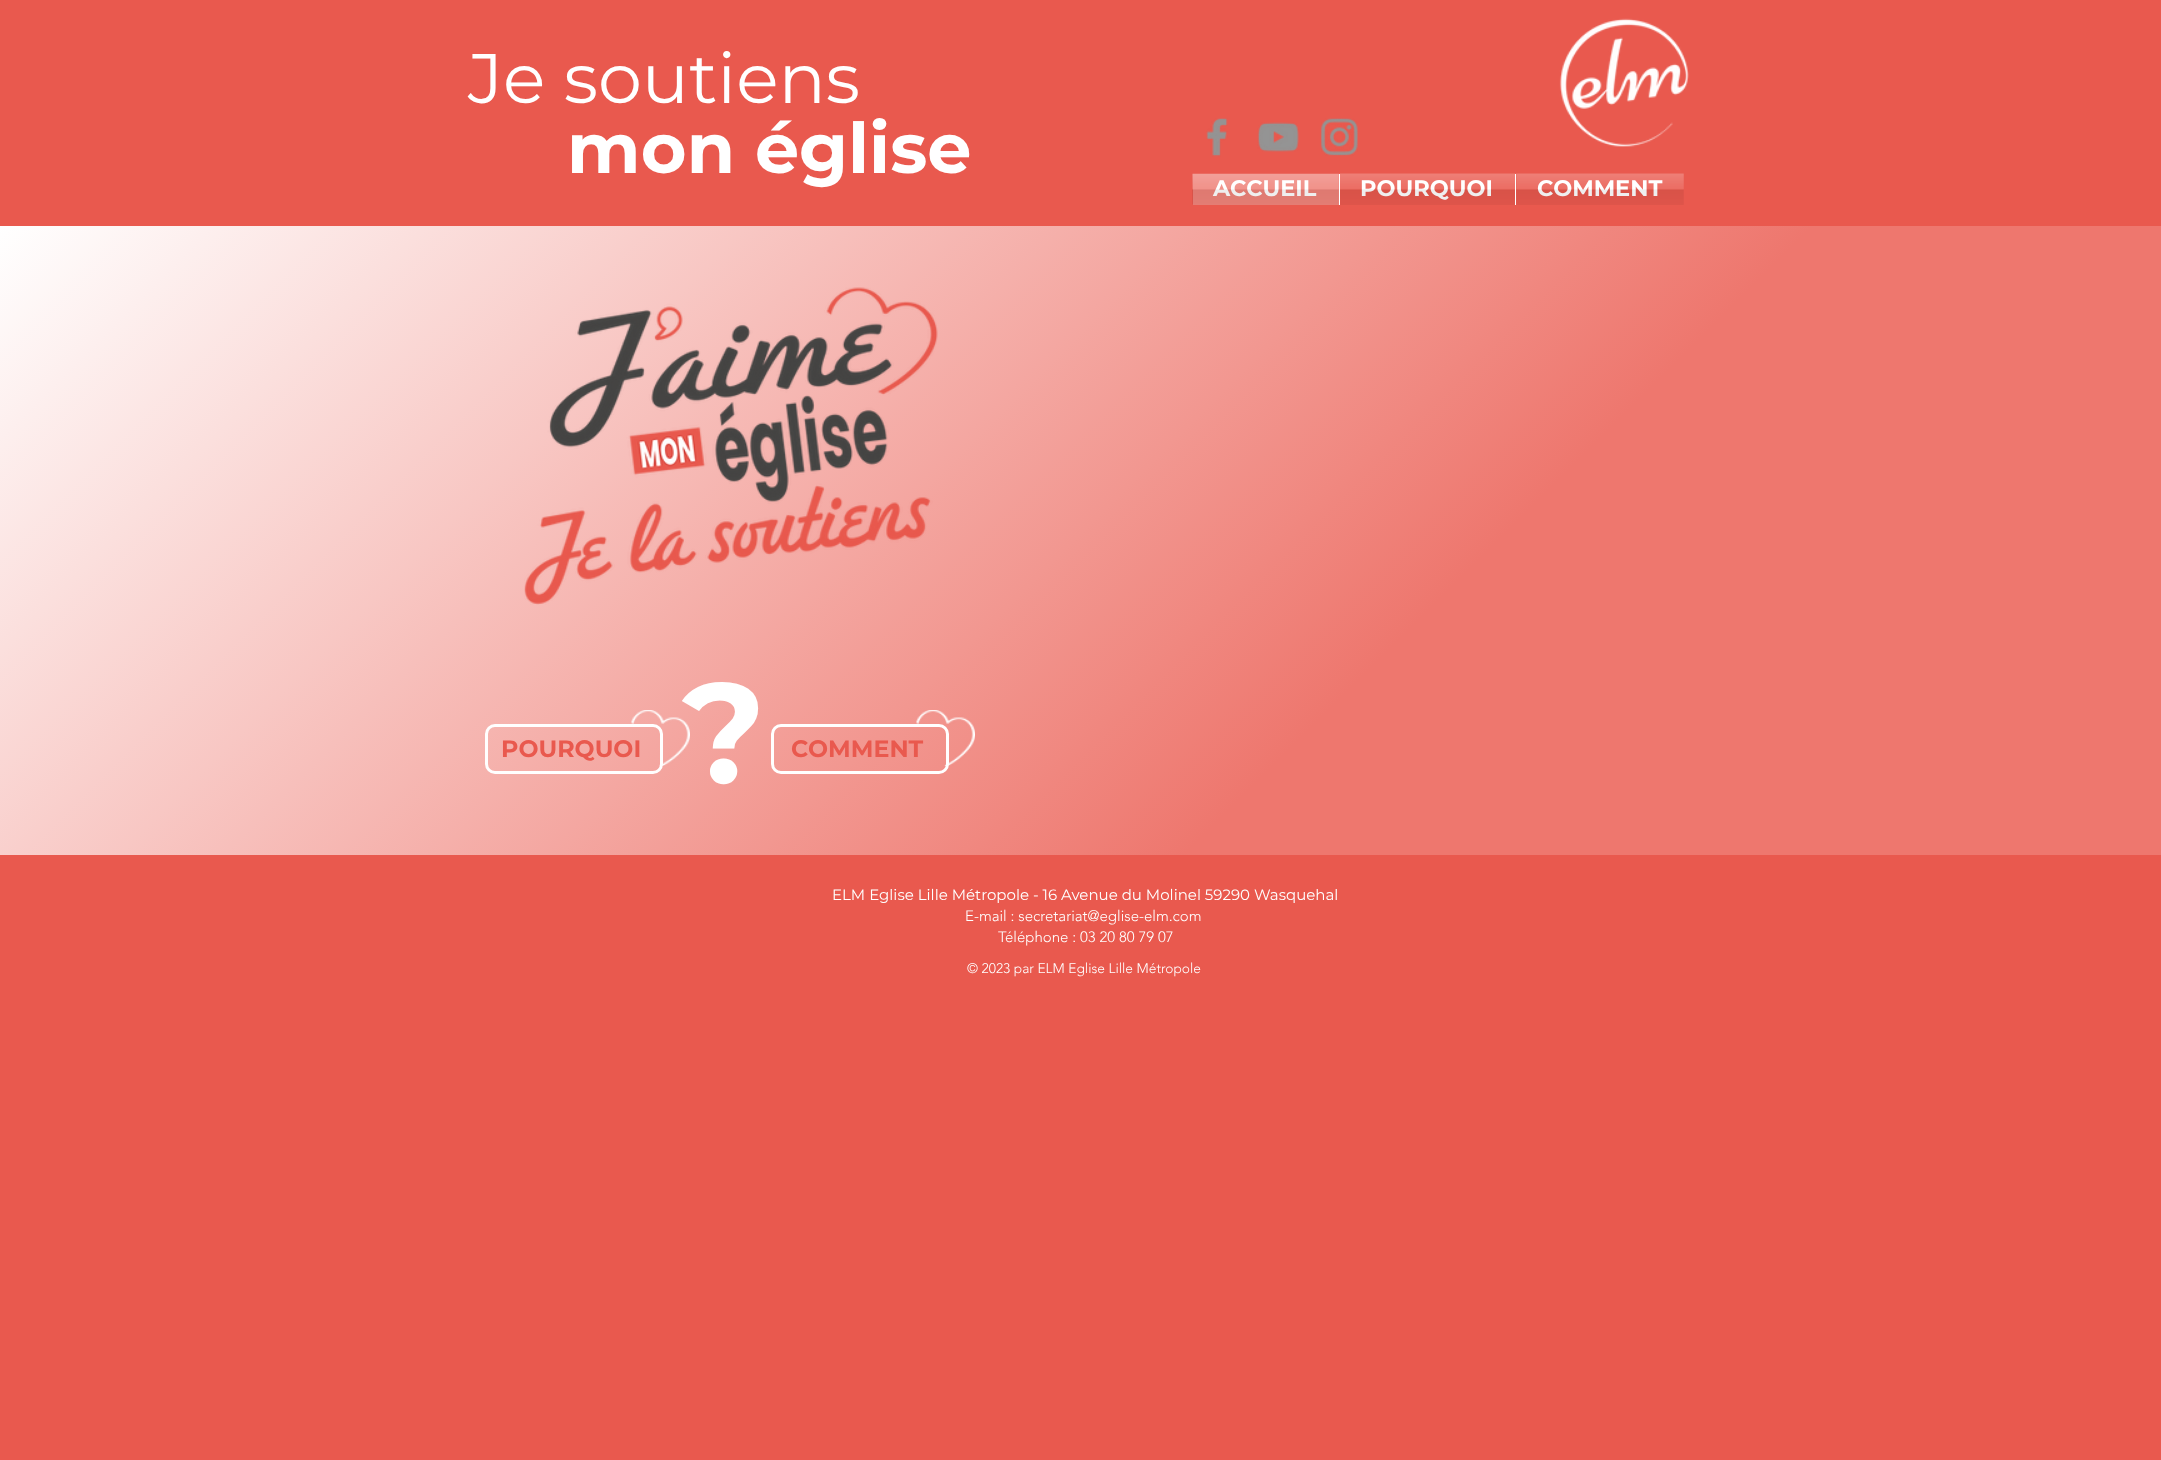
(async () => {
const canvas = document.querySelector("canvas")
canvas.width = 2161
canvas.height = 1460
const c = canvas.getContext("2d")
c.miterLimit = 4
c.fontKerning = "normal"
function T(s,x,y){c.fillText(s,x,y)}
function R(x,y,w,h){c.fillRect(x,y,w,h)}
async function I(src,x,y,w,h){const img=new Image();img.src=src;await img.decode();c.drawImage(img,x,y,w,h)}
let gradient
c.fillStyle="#e9594e"
R(0,0,2161,1460)
c.font="70px Montserrat"
c.fillStyle="#fff"
T("Je soutiens",468,103)
c.font="bold 70px Montserrat"
T("mon église",567,173)
await I("1.png",1206,118,22,39)
await I("2.png",1257,122,42,30)
await I("3.png",1321,118,37,38)
await I("4.png",1559,18,130,129)
await I("5.png",1192,173,492,31)
c.fillStyle="#ef837a"
R(1193,174,146,31)
c.font="bold 22.5px Montserrat"
c.fillStyle="#fff"
T("ACCUEIL",1213,196)
await I("6.png",1192,173,147,32)
c.fillStyle="#e9594e"
R(1340,174,175,30)
c.fillStyle="#fff"
R(1339,174,1,31)
T("POURQUOI",1360,196)
await I("7.png",1340,173,175,32)
c.fillStyle="#e9594e"
R(1516,174,168,30)
c.fillStyle="#fff"
R(1515,174,1,31)
T("COMMENT",1537,196)
await I("8.png",1516,173,168,32)
gradient = c.createLinearGradient(383,-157,1778,1238)
gradient.addColorStop(0,"#fff")
gradient.addColorStop(.65,"#ee776e")
c.fillStyle = gradient
R(0,226,2161,629)
await I("9.png",524,287,414,318)
c.beginPath()
c.roundRect(486.5,725.5,175,47,8.5)
c.strokeStyle="#fff"
c.lineWidth=3
c.stroke()
c.font="bold 23.75px Montserrat"
c.fillStyle="#e9594e"
T("POURQUOI",501,757)
c.font="bold 142px Montserrat"
c.fillStyle="#fff"
T("?",682,783)
await I("10.png",631,710,59,56)
c.beginPath()
c.roundRect(772.5,725.5,175,47,8.5)
c.stroke()
c.font="bold 23.75px Montserrat"
c.fillStyle="#e9594e"
T("COMMENT",791,757)
await I("11.png",916,710,59,56)
c.font="15px Montserrat"
c.fillStyle="#fff"
T("ELM Eglise Lille Métropole - 16 Avenue du Molinel 59290 Wasquehal",832,900)
c.font="300 15px 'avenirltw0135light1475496'"
T("E-mail : secretariat@eglise-elm.com",965,921)
T("Téléphone : 03 20 80 79 07",998,942)
c.font="300 13.75px 'avenirltw0135light1475496'"
T("© 2023 par ELM Eglise Lille Métropole",967,973)
})()
